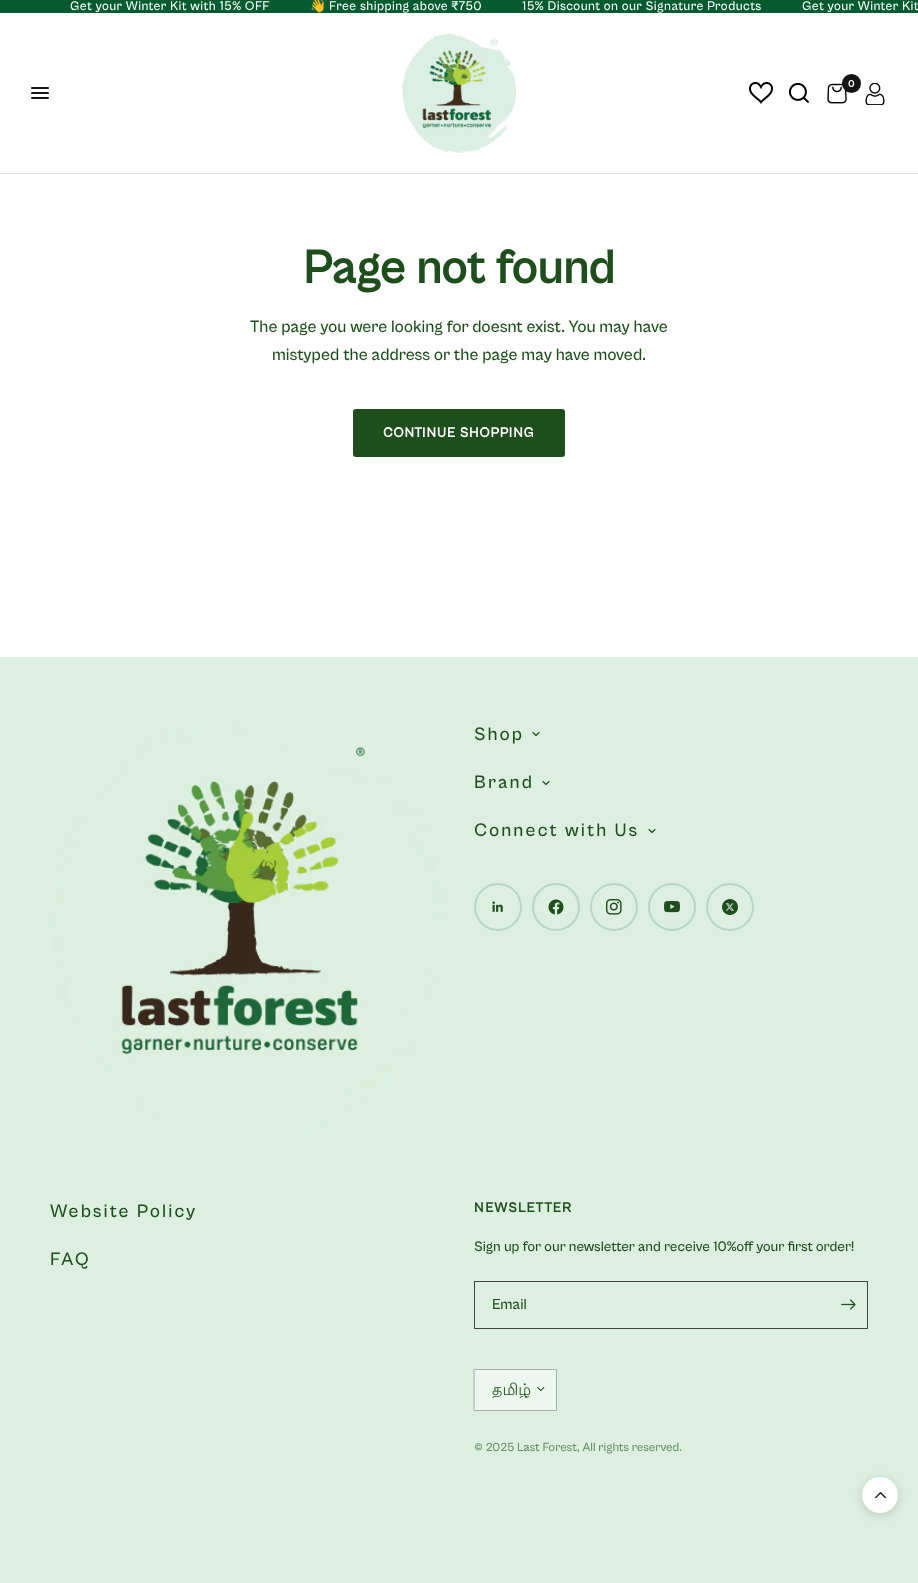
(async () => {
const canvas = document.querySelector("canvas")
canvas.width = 918
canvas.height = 1583
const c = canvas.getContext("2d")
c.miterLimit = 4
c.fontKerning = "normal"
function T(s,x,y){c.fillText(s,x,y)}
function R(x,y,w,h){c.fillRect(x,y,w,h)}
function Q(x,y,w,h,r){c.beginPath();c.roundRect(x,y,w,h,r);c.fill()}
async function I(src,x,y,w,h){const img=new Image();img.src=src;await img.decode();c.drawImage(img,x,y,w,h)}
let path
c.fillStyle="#fff"
R(0,0,918,1583)
c.fillStyle="#035b2f"
R(0,0,918,13)
c.letterSpacing="0.4px"
c.font="500 13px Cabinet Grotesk"
c.fillStyle="#fff"
T("Get your Winter Kit with 15% OFF",70,10)
c.font="13px Noto Color Emoji"
T("👋",310,10)
c.font="500 13px Cabinet Grotesk"
T("Free shipping above ₹750",329,10)
T("15% Discount on our Signature Products",522,10)
T("Get your Winter Kit",802,10)
c.fillStyle="#e2e2e2"
R(0,173,918,1)
await I("1.png",402,33,114,120)
await I("2.png",749,82,24,22)
await I("3.png",788,82,21,21)
await I("4.png",827,83,20,21)
c.fillStyle="#151515"
c.beginPath()
c.arc(851.5,83.5,9.5,0,7)
c.fill()
c.letterSpacing="0px"
c.font="bold 10px Cabinet Grotesk"
c.fillStyle="#fff"
T("0",848,87)
await I("5.png",865,83,20,22)
c.fillStyle="#151515"
Q(31,87,18,2,1)
Q(31,92,18,2,1)
Q(31,97,18,2,1)
c.font="bold 48px Cabinet Grotesk"
c.fillStyle="#1e4e1c"
T("Page not found",303,283)
c.font="500 17px Cabinet Grotesk"
T("The page you were looking for doesnt exist. You may have",250,332)
T("mistyped the address or the page may have moved.",272,360)
Q(353,409,212,48,3)
c.letterSpacing="0.8px"
c.font="bold 14px Cabinet Grotesk"
c.fillStyle="#fff"
T("CONTINUE SHOPPING",383,437)
c.fillStyle="#ddefe0"
R(0,657,918,926)
await I("6.png",50,725,391,413)
c.letterSpacing="2.1px"
c.font="500 18.75px Cabinet Grotesk"
c.fillStyle="#1e4e1c"
T("Shop",474,740)
path = new Path2D("M539 732.5l-3 3l-3-3m16 49l-3 3l-3-3")
c.strokeStyle="#1e4e1c"
c.lineWidth=1.1
c.lineCap="round"
c.lineJoin="round"
c.stroke(path)
T("Brand",474,788)
T("Connect with Us",474,836)
path = new Path2D("M655 829.5l-3 3l-3-3")
c.stroke(path)
c.beginPath()
c.arc(498,907,23,0,7)
c.strokeStyle="#bad7c4"
c.lineWidth=2
c.stroke()
await I("7.png",492,901,11,11)
c.beginPath()
c.arc(556,907,23,0,7)
c.stroke()
await I("8.png",548,899,16,16)
c.beginPath()
c.arc(614,907,23,0,7)
c.stroke()
await I("9.png",606,899,16,16)
c.beginPath()
c.arc(672,907,23,0,7)
c.stroke()
await I("10.png",664,901,16,12)
c.beginPath()
c.arc(730,907,23,0,7)
c.stroke()
await I("11.png",722,899,16,16)
T("Website Policy",50,1217)
T("FAQ",50,1265)
c.letterSpacing="1.4px"
c.font="bold 14px Cabinet Grotesk"
T("NEWSLETTER",474,1212)
c.letterSpacing="0px"
c.font="500 14.35px Cabinet Grotesk"
T("Sign up for our newsletter and receive 10%off your first order!",474,1251)
c.strokeStyle="#444"
c.lineWidth=1
c.lineJoin="miter"
c.strokeRect(474.5,1281.5,393,47)
c.font="500 15px Cabinet Grotesk"
T("Email",492,1309)
await I("12.png",841,1299,15,11)
c.fillStyle="#edf7ef"
c.beginPath()
c.rect(474.5,1369.5,82,41)
c.fill()
c.strokeStyle="#a9afab"
c.stroke()
c.save()
c.beginPath()
c.rect(492,1382,40,16)
c.clip()
c.font="16px Lohit Tamil"
c.fillStyle="#1e4e1c"
T("தமிழ்",492,1395)
c.restore()
await I("13.png",537,1387,8,4)
c.font="500 12.3px Cabinet Grotesk"
c.fillStyle="#6a8e6a"
T("© 2025 Last Forest, All rights reserved.",474,1451)
c.fillStyle="#00000026"
c.filter="blur(5px)"
c.beginPath()
c.roundRect(862,1479,36,36,18)
c.fill()
c.filter="none"
c.fillStyle="#fff"
c.beginPath()
c.arc(880,1495,18,0,7)
c.fill()
await I("14.png",875,1492,11,7)
})()
